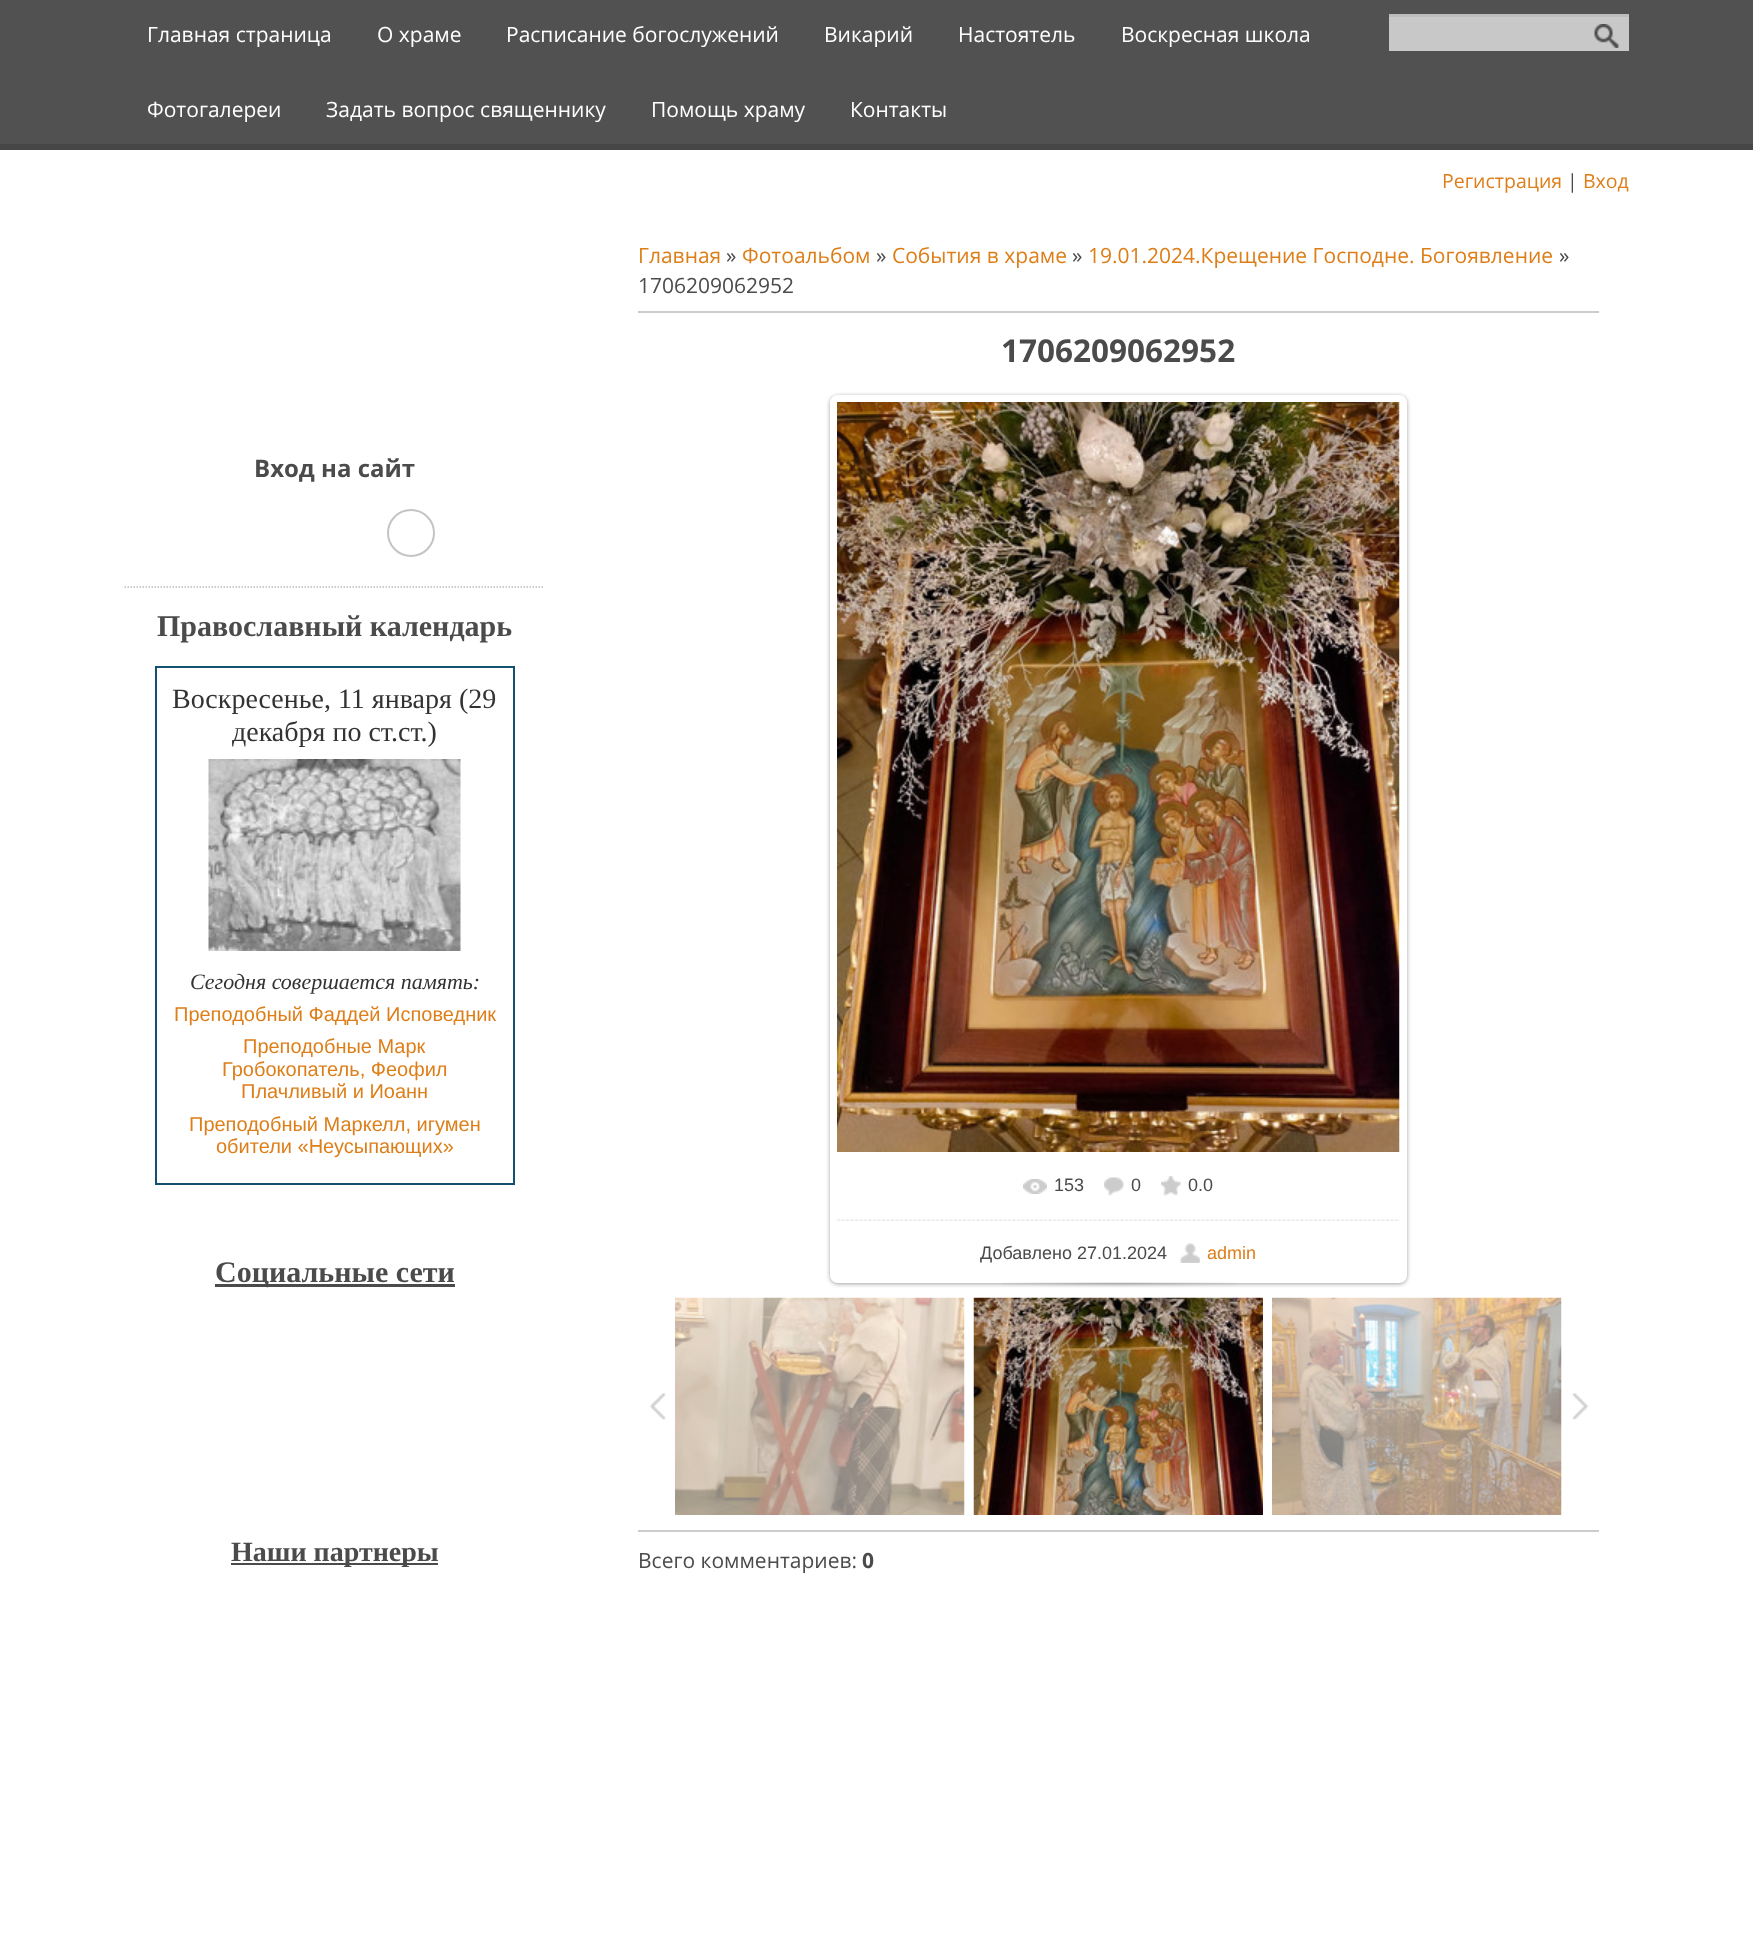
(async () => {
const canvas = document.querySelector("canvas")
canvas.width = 1753
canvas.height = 1942
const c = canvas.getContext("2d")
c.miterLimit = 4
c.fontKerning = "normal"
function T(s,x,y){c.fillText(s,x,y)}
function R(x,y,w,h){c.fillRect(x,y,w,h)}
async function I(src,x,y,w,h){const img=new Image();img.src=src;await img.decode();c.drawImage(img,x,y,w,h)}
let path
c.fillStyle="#fff"
R(0,0,1753,1942)
c.fillStyle="#515151"
R(0,0,1753,144)
c.fillStyle="#464646"
R(0,144,1753,6)
c.font="21px Open Sans"
c.fillStyle="#fff"
T("Главная страница",147,42)
T("О храме",377,42)
T("Расписание богослужений",506,42)
T("Викарий",824,42)
T("Настоятель",958,42)
T("Воскресная школа",1121,42)
T("Фотогалереи",147,117)
T("Задать вопрос священнику",326,117)
T("Помощь храму",651,117)
T("Контакты",850,117)
c.fillStyle="#c9c8c8"
R(1389,17,240,34)
c.fillStyle="#bdbcbc"
R(1389,14,240,3)
await I("1.png",1594,24,25,24)
c.font="19.5px Open Sans"
c.fillStyle="#dd7e18"
T("Регистрация",1442,188)
c.fillStyle="#4b4b4b"
T("|",1567,188)
c.fillStyle="#dd7e18"
T("Вход",1583,188)
path = new Path2D("M124.5 587h420")
c.strokeStyle="#bbb"
c.lineWidth=1.5
c.setLineDash([1.5,1.5])
c.stroke(path)
c.font="bold 24px Open Sans"
c.fillStyle="#4b4b4b"
T("Вход на сайт",254,477)
c.beginPath()
c.arc(411,533,23,0,7)
c.strokeStyle="#c4c4c4"
c.lineWidth=2
c.setLineDash([])
c.stroke()
c.font="bold 30px Liberation Serif"
T("Православный календарь",157,636)
c.strokeStyle="#125270"
c.strokeRect(156,667,358,517)
c.font="28px Liberation Serif"
c.fillStyle="#333"
T("Воскресенье, 11 января (29",172,708)
T("декабря по ст.ст.)",232,741)
await I("2.png",208,759,253,192)
c.font="italic 22px Liberation Serif"
T("Сегодня совершается память:",190,989)
c.font="20px Liberation Sans"
c.fillStyle="#dd7e18"
T("Преподобный Фаддей Исповедник",174,1021)
T("Преподобные Марк",243,1053)
T("Гробокопатель, Феофил",222,1076)
T("Плачливый и Иоанн",241,1098)
T("Преподобный Маркелл, игумен",189,1131)
T("обители «Неусыпающих»",216,1153)
c.fillStyle="#4b4b4b"
R(215,1284,240,3)
c.font="bold 30px Liberation Serif"
T("Социальные сети",215,1282)
R(231,1563,207,2)
c.font="bold 28px Liberation Serif"
T("Наши партнеры",231,1561)
c.font="21px Open Sans"
c.fillStyle="#dd7e18"
T("Главная",638,263)
c.fillStyle="#4b4b4b"
T("»",726,263)
c.fillStyle="#dd7e18"
T("Фотоальбом",742,263)
c.fillStyle="#4b4b4b"
T("»",876,263)
c.fillStyle="#dd7e18"
T("События в храме",892,263)
c.fillStyle="#4b4b4b"
T("»",1072,263)
c.fillStyle="#dd7e18"
T("19.01.2024.Крещение Господне. Богоявление",1088,263)
c.fillStyle="#4b4b4b"
T("»",1559,263)
T("1706209062952",638,293)
c.fillStyle="#ccc"
R(638,311,961,2)
c.font="bold 31.5px Open Sans"
c.fillStyle="#4b4b4b"
T("1706209062952",1001,362)
c.save()
path = new Path2D("M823 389h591v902h-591zm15 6h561c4.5 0 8 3.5 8 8v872c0 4.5-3.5 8-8 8h-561c-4.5 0-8-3.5-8-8v-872c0-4.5 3.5-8 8-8z")
c.clip(path,"evenodd")
c.fillStyle="#0000005e"
c.filter="blur(2px)"
c.beginPath()
c.roundRect(830,396,577,888,8)
c.fill()
c.filter="none"
c.restore()
await I("3.png",837,402,563,750)
await I("4.png",1023,1179,24,15)
c.font="18px Liberation Sans"
T("153",1054,1191)
await I("5.png",1104,1177,20,19)
T("0",1131,1191)
await I("6.png",1161,1176,20,20)
T("0.0",1188,1191)
await I("7.png",837,1219,563,2)
T("Добавлено 27.01.2024",980,1259)
await I("8.png",1180,1243,20,20)
c.fillStyle="#dd7e18"
T("admin",1207,1259)
await I("9.png",1003,1282,233,5)
await I("10.png",649,1393,17,27)
await I("11.png",675,1297,290,218)
await I("12.png",973,1297,290,218)
await I("13.png",1272,1297,290,218)
await I("14.png",1572,1393,17,27)
c.fillStyle="#ccc"
R(638,1530,961,2)
c.font="21px Open Sans"
c.fillStyle="#4b4b4b"
T("Всего комментариев:",638,1568)
c.font="bold 21px Open Sans"
T("0",862,1568)
})()
